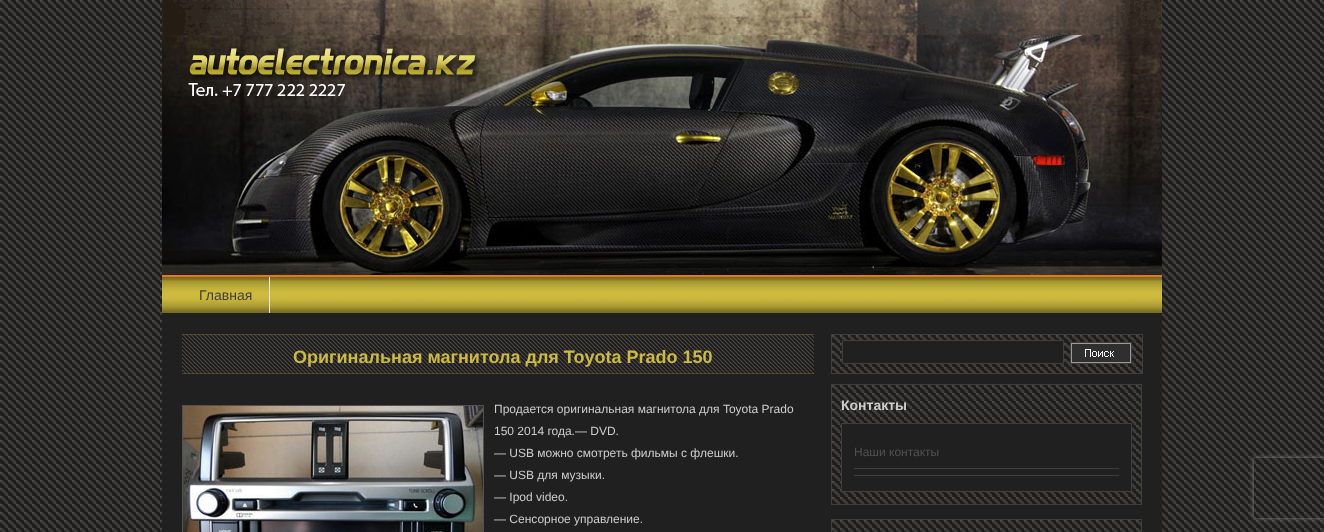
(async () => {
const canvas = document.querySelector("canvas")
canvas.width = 1324
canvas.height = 532
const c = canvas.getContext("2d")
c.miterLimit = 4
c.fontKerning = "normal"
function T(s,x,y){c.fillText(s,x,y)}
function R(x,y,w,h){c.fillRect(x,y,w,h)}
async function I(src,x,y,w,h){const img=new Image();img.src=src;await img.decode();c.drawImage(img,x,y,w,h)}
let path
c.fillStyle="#fff"
R(0,0,1324,532)
await I("1.png",0,0,1324,532)
await I("2.png",162,0,1000,35)
await I("3.png",162,35,1000,240)
c.fillStyle="#e77615"
R(162,275,1000,2)
await I("4.png",188,46,294,50)
c.fillStyle="#202020"
R(162,313,1000,219)
await I("5.png",162,277,1000,36)
await I("6.png",182,277,87,35)
c.fillStyle="#e4e4e4"
R(269,277,1,36)
c.font="14px Liberation Sans"
c.fillStyle="#3e3e3e"
T("Главная",199,300)
await I("7.png",182,334,632,40)
c.font="bold 18px Liberation Sans"
c.fillStyle="#cebb3e"
T("Оригинальная магнитола для Toyota Prado 150",293,363)
c.strokeStyle="#515151"
c.strokeRect(182.5,405.5,301,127)
await I("8.png",183,406,300,126)
c.font="12px Liberation Sans"
c.fillStyle="#ccc"
T("Продается оригинальная магнитола для Toyota Prado",494,413)
T("150 2014 года.— DVD.",494,435)
T("— USB можно смотреть фильмы с флешки.",494,457)
T("— USB для музыки.",494,479)
T("— Ipod video.",494,501)
T("— Сенсорное управление.",494,523)
await I("9.png",832,335,310,38)
c.strokeStyle="#3e3e3e"
c.strokeRect(831.5,334.5,311,39)
c.fillStyle="#202020"
c.beginPath()
c.rect(842.5,340.5,221,23)
c.fill()
c.stroke()
c.strokeRect(1070.5,342.5,61,21)
await I("10.png",1071,343,60,20)
await I("11.png",832,385,309,119)
c.strokeRect(831.5,384.5,310,120)
c.font="bold 14px Liberation Sans"
c.fillStyle="#ccc"
T("Контакты",841,410)
c.fillStyle="#202020"
c.beginPath()
c.rect(841.5,423.5,290,68)
c.fill()
c.stroke()
c.fillStyle="#3e3e3e"
R(854,475,265,1)
R(854,468,265,1)
c.font="12px Liberation Sans"
c.fillStyle="#515151"
T("Наши контакты",854,456)
await I("12.png",832,520,309,12)
c.strokeRect(831.5,519.5,310,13)
c.save()
path = new Path2D("M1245 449h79v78h-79zm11 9h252c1 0 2 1 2 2v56c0 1-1 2-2 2h-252c-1 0-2-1-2-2v-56c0-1 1-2 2-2z")
c.clip(path,"evenodd")
c.fillStyle="#808080"
c.filter="blur(2.5px)"
c.beginPath()
c.roundRect(1254,458,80,60,2)
c.fill()
c.filter="none"
c.restore()
})()
